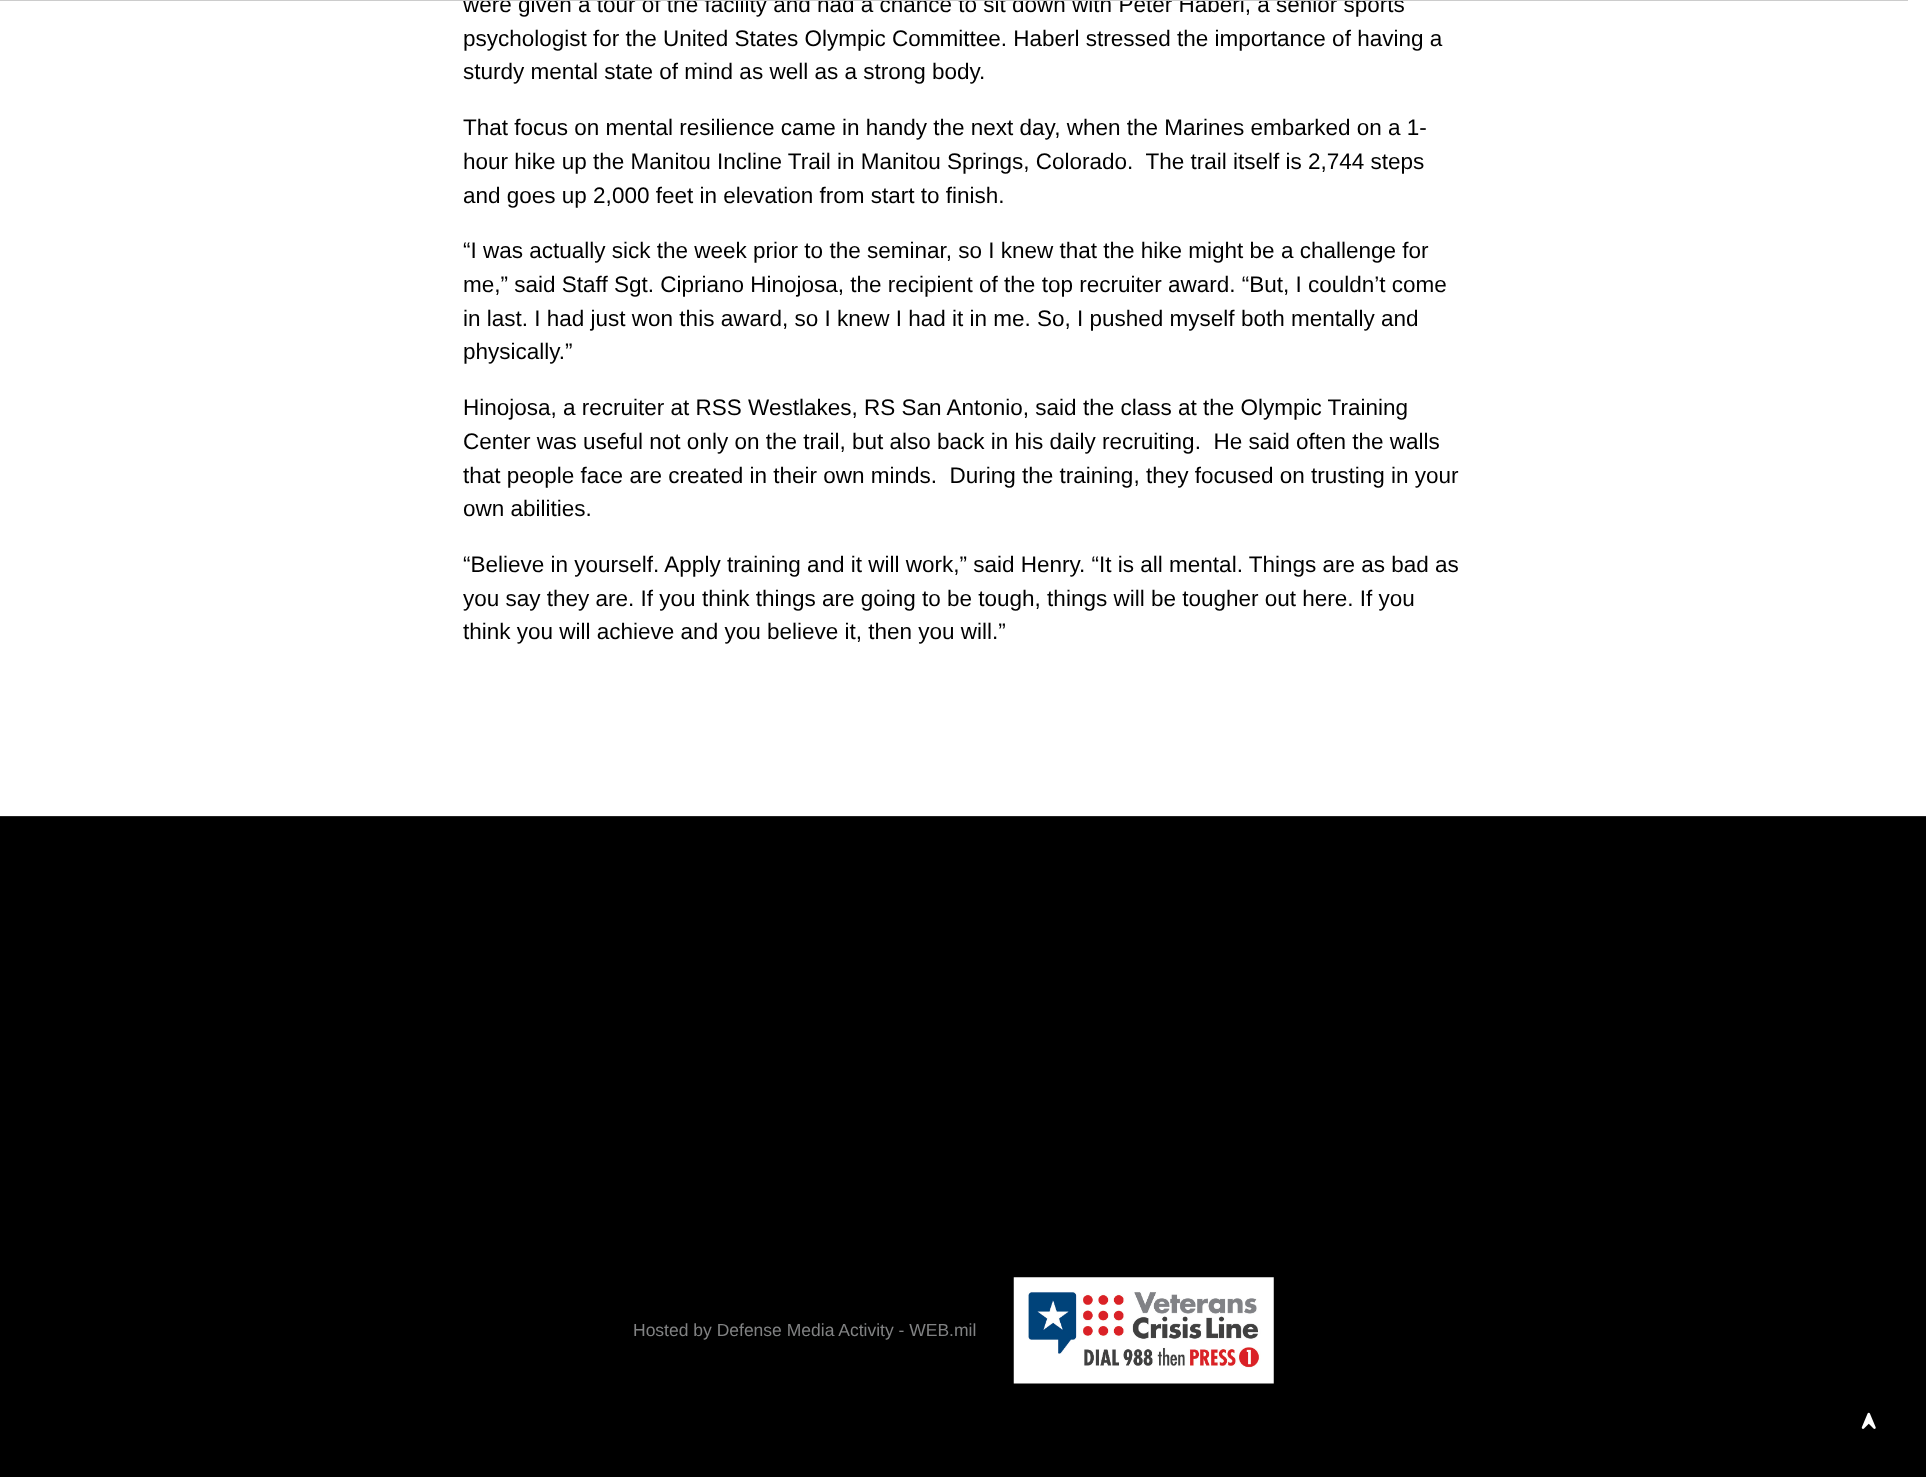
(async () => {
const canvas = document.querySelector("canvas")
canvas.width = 1926
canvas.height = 1477
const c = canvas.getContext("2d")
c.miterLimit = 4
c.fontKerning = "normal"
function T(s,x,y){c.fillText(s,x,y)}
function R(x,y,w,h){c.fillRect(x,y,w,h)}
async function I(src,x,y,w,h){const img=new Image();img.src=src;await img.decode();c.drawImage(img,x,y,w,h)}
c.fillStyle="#fff"
R(0,0,1926,1477)
c.font="22.5px Liberation Sans"
c.fillStyle="#000"
T("were given a tour of the facility and had a chance to sit down with Peter Haberl, a senior sports",463,12)
c.fillStyle="#ccc"
R(0,0,1908,1)
c.fillStyle="#000"
T("psychologist for the United States Olympic Committee. Haberl stressed the importance of having a",463,46)
T("sturdy mental state of mind as well as a strong body.",463,79)
T("That focus on mental resilience came in handy the next day, when the Marines embarked on a 1-",463,135)
T("hour hike up the Manitou Incline Trail in Manitou Springs, Colorado.  The trail itself is 2,744 steps",463,169)
T("and goes up 2,000 feet in elevation from start to finish.",463,203)
T("“I was actually sick the week prior to the seminar, so I knew that the hike might be a challenge for",463,258)
T("me,” said Staff Sgt. Cipriano Hinojosa, the recipient of the top recruiter award. “But, I couldn’t come",463,292)
T("in last. I had just won this award, so I knew I had it in me. So, I pushed myself both mentally and",463,326)
T("physically.”",463,359)
T("Hinojosa, a recruiter at RSS Westlakes, RS San Antonio, said the class at the Olympic Training",463,415)
T("Center was useful not only on the trail, but also back in his daily recruiting.  He said often the walls",463,449)
T("that people face are created in their own minds.  During the training, they focused on trusting in your",463,483)
T("own abilities.",463,516)
T("“Believe in yourself. Apply training and it will work,” said Henry. “It is all mental. Things are as bad as",463,572)
T("you say they are. If you think things are going to be tough, things will be tougher out here. If you",463,606)
T("think you will achieve and you believe it, then you will.”",463,639)
R(0,817,1926,660)
c.fillStyle="#232323"
R(0,816,1926,1)
c.font="17.5px Liberation Sans"
c.fillStyle="#818283"
T("Hosted by Defense Media Activity - WEB.mil",633,1336)
await I("1.png",1013,1277,261,107)
await I("2.png",1861,1412,15,17)
})()
